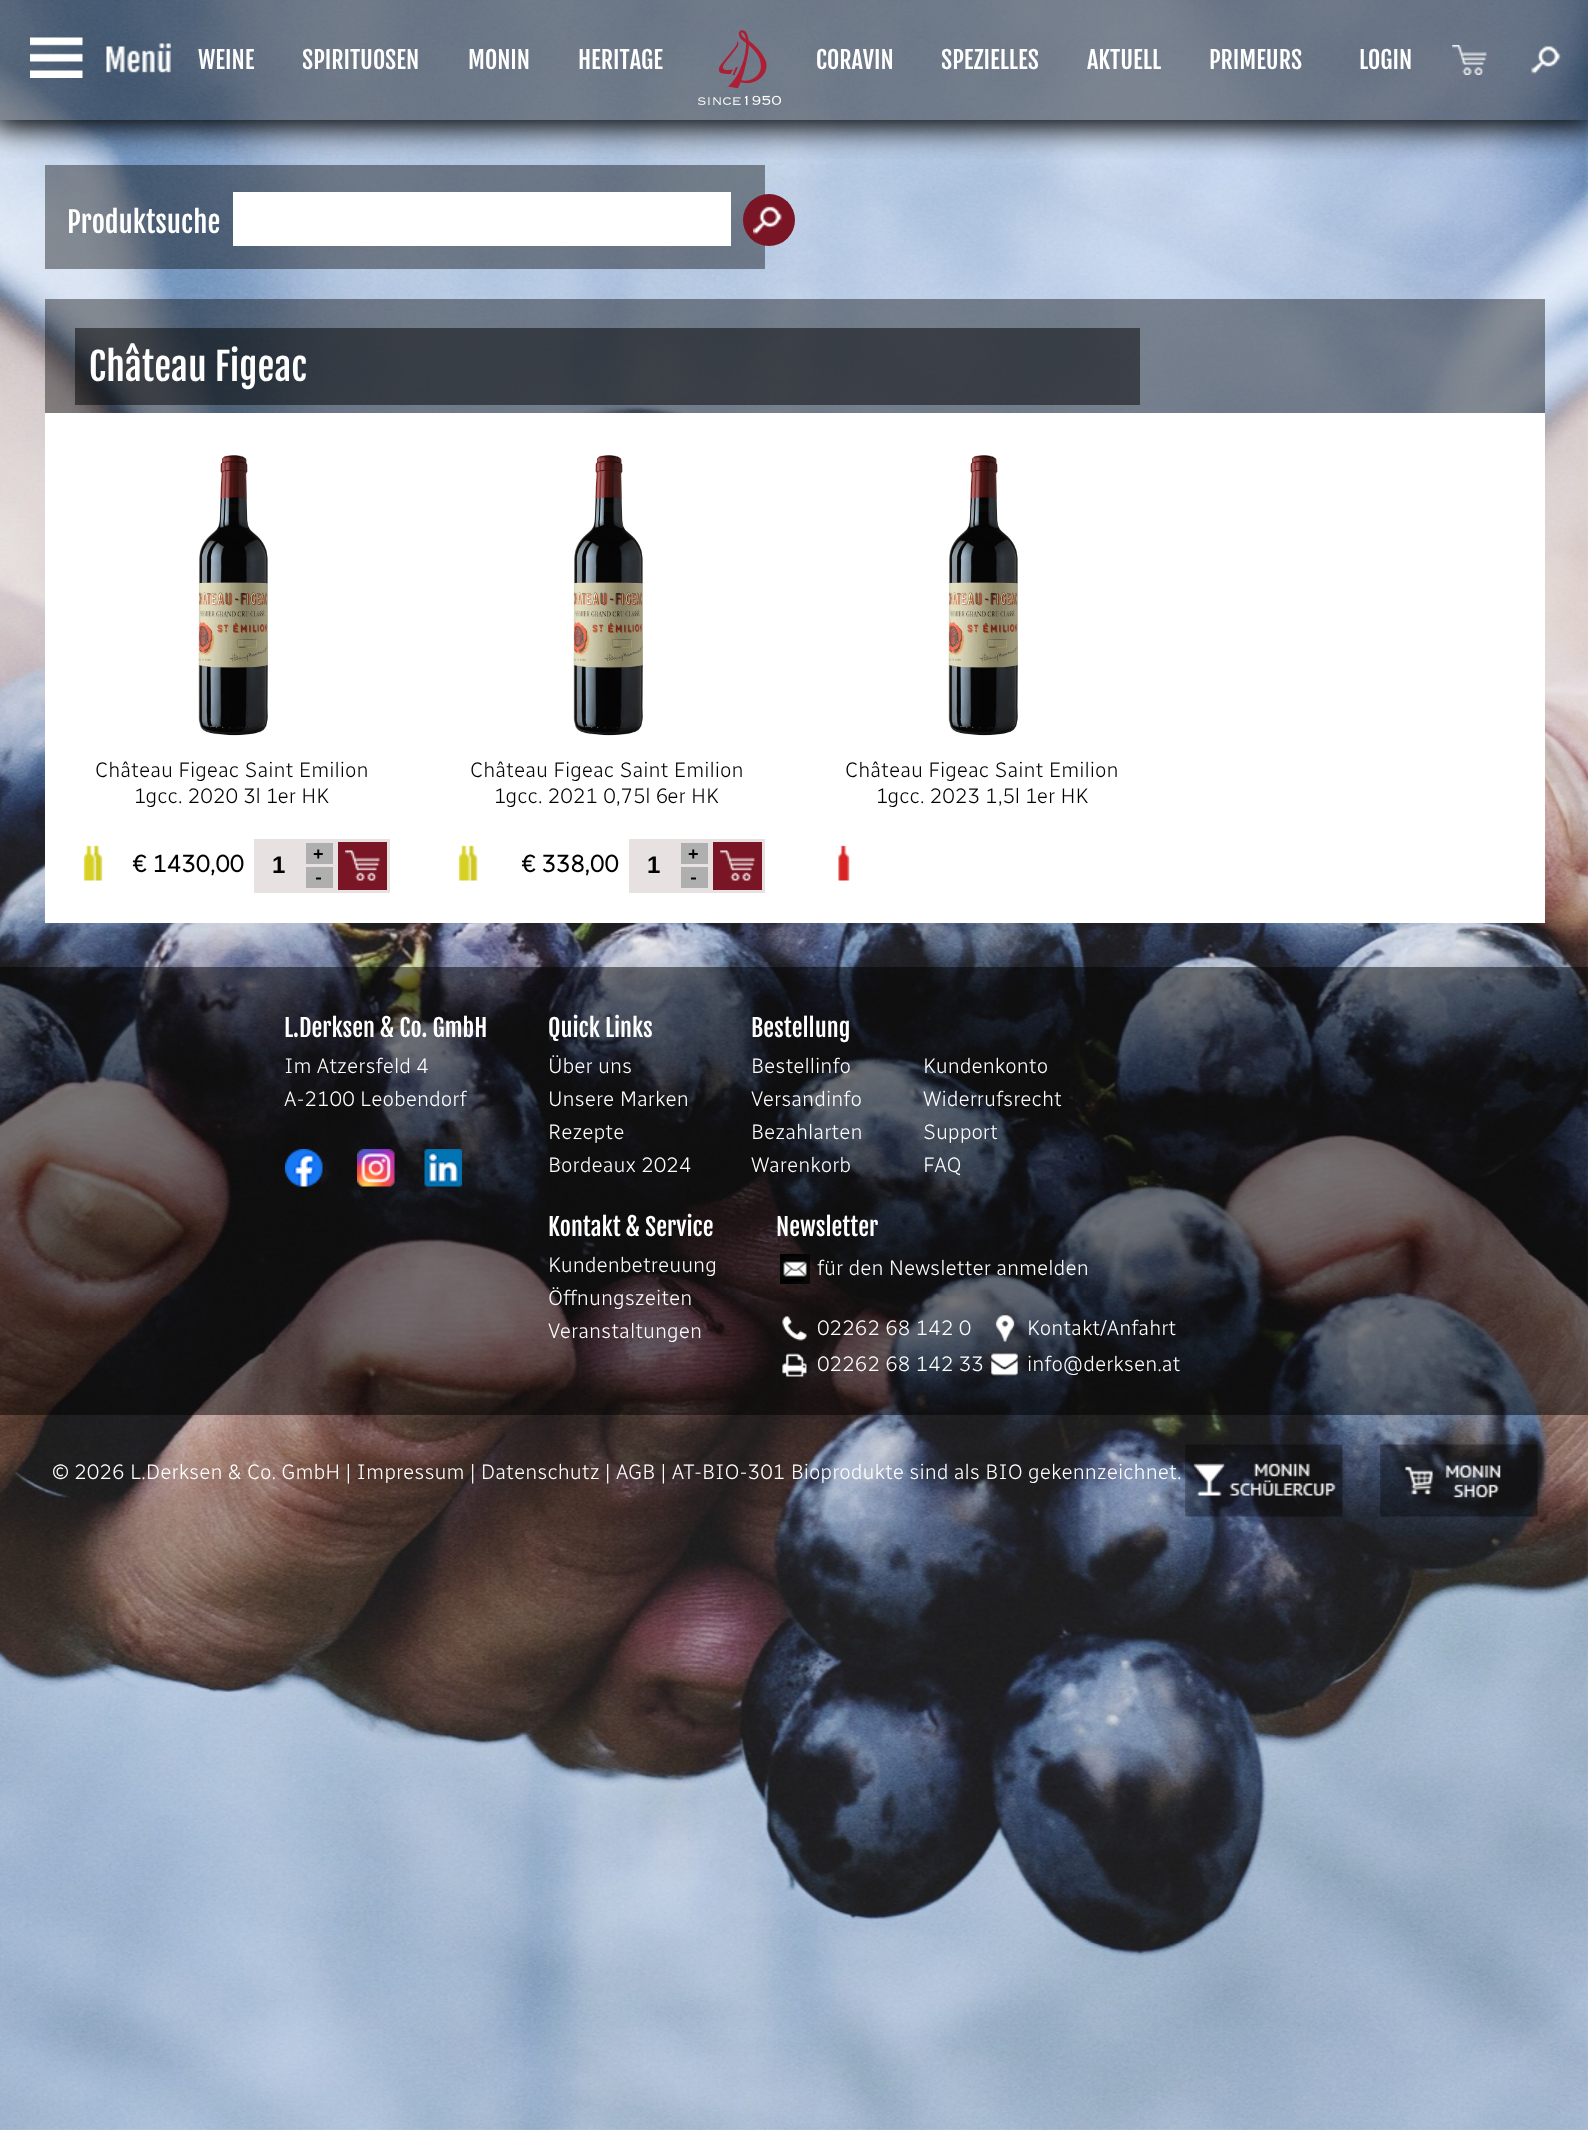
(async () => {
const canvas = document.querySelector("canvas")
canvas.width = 1588
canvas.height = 2130
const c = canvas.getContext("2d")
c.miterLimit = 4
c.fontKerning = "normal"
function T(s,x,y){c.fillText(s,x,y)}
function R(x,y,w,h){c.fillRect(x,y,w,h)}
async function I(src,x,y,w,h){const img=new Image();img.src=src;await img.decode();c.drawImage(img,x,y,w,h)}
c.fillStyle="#fff"
R(0,0,1588,2130)
await I("1.png",0,0,1588,2130)
c.save()
c.beginPath()
c.rect(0,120,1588,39)
c.clip()
c.fillStyle="#000"
c.filter="blur(15px)"
c.beginPath()
c.rect(-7,-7,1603,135)
c.fill()
c.filter="none"
c.restore()
c.fillStyle="#00000066"
R(0,0,1588,120)
await I("2.png",30,37,141,41)
c.font="24px Fjalla One"
c.fillStyle="#fff"
T("WEINE",198,69)
T("SPIRITUOSEN",302,69)
T("MONIN",468,69)
T("HERITAGE",578,69)
await I("3.png",698,30,83,75)
T("CORAVIN",816,69)
T("SPEZIELLES",941,69)
T("AKTUELL",1087,69)
T("PRIMEURS",1209,69)
T("LOGIN",1359,69)
await I("4.png",1452,45,35,30)
await I("5.png",1531,46,30,28)
c.fillStyle="#00000066"
R(45,165,720,104)
c.font="28.5px Fjalla One"
c.fillStyle="#fff"
T("Produktsuche",67,233)
R(233,192,498,54)
c.fillStyle="#791524"
c.beginPath()
c.arc(769,220,26,0,7)
c.fill()
await I("6.png",753,206,29,29)
c.fillStyle="#00000066"
R(45,299,1500,114)
c.fillStyle="#0000007d"
R(75,328,1065,77)
c.font="37.5px Fjalla One"
c.fillStyle="#fff"
T("Château Figeac",89,381)
R(45,413,1500,510)
await I("7.png",198,455,70,281)
c.font="300 21px Radio Canada"
c.fillStyle="#000"
T("Château Figeac Saint Emilion",95,777)
T("1gcc. 2020 3l 1er HK",134,803)
await I("8.png",83,845,20,36)
c.font="bold 24px Radio Canada"
T("€ 1430,00",132,872)
c.fillStyle="#e8e1e2"
R(254,839,136,54)
c.font="bold 24px Liberation Sans"
c.fillStyle="#000"
T("1",272,873)
c.fillStyle="#b0afb0"
R(306,843,27,21)
c.font="bold 18px Liberation Sans"
c.fillStyle="#000"
T("+",313,860)
c.fillStyle="#b0afb0"
R(306,867,27,21)
c.font="bold 18px Roboto"
c.fillStyle="#000"
T("-",315,884)
c.fillStyle="#791524"
R(338,842,49,48)
await I("9.png",345,850,35,31)
await I("10.png",573,455,70,281)
c.font="300 21px Radio Canada"
c.fillStyle="#000"
T("Château Figeac Saint Emilion",470,777)
T("1gcc. 2021 0,75l 6er HK",494,803)
await I("11.png",458,845,20,36)
c.font="bold 24px Radio Canada"
T("€ 338,00",521,872)
c.fillStyle="#e8e1e2"
R(629,839,136,54)
c.font="bold 24px Liberation Sans"
c.fillStyle="#000"
T("1",647,873)
c.fillStyle="#b0afb0"
R(681,843,27,21)
c.font="bold 18px Liberation Sans"
c.fillStyle="#000"
T("+",688,860)
c.fillStyle="#b0afb0"
R(681,867,27,21)
c.font="bold 18px Roboto"
c.fillStyle="#000"
T("-",690,884)
c.fillStyle="#791524"
R(713,842,49,48)
await I("9.png",720,850,35,31)
await I("10.png",948,455,70,281)
c.font="300 21px Radio Canada"
c.fillStyle="#000"
T("Château Figeac Saint Emilion",845,777)
T("1gcc. 2023 1,5l 1er HK",876,803)
await I("12.png",838,845,12,36)
c.fillStyle="#0000007d"
R(0,967,1588,448)
c.font="24px Fjalla One"
c.fillStyle="#fff"
T("L.Derksen & Co. GmbH",284,1037)
c.font="300 21px Radio Canada"
T("Im Atzersfeld 4",284,1073)
T("A-2100 Leobendorf",284,1106)
await I("13.png",285,1149,38,38)
await I("14.png",357,1149,38,38)
await I("15.png",424,1149,38,38)
c.font="24px Fjalla One"
T("Quick Links",548,1037)
c.font="300 21px Radio Canada"
T("Über uns",548,1073)
T("Unsere Marken",548,1106)
T("Rezepte",548,1139)
T("Bordeaux 2024",548,1172)
c.font="24px Fjalla One"
T("Bestellung",751,1037)
c.font="300 21px Radio Canada"
T("Bestellinfo",751,1073)
T("Versandinfo",751,1106)
T("Bezahlarten",751,1139)
T("Warenkorb",751,1172)
T("Kundenkonto",923,1073)
T("Widerrufsrecht",923,1106)
T("Support",923,1139)
T("FAQ",923,1172)
c.font="24px Fjalla One"
T("Kontakt & Service",548,1236)
c.font="300 21px Radio Canada"
T("Kundenbetreuung",548,1272)
T("Öffnungszeiten",548,1305)
T("Veranstaltungen",548,1338)
c.font="24px Fjalla One"
T("Newsletter",776,1236)
await I("16.png",780,1254,30,30)
c.font="300 21px Radio Canada"
T("für den Newsletter anmelden",817,1275)
await I("17.png",782,1316,25,25)
T("02262 68 142 0",817,1335)
await I("18.png",995,1315,20,27)
T("Kontakt/Anfahrt",1027,1335)
await I("19.png",782,1353,25,24)
T("02262 68 142 33",817,1371)
await I("20.png",991,1353,27,23)
T("info@derksen.at",1027,1371)
T("© 2026 L.Derksen & Co. GmbH | Impressum | Datenschutz | AGB | AT-BIO-301 Bioprodukte sind als BIO gekennzeichnet.",52,1479)
await I("21.png",1185,1444,158,73)
await I("22.png",1380,1444,158,73)
})()
